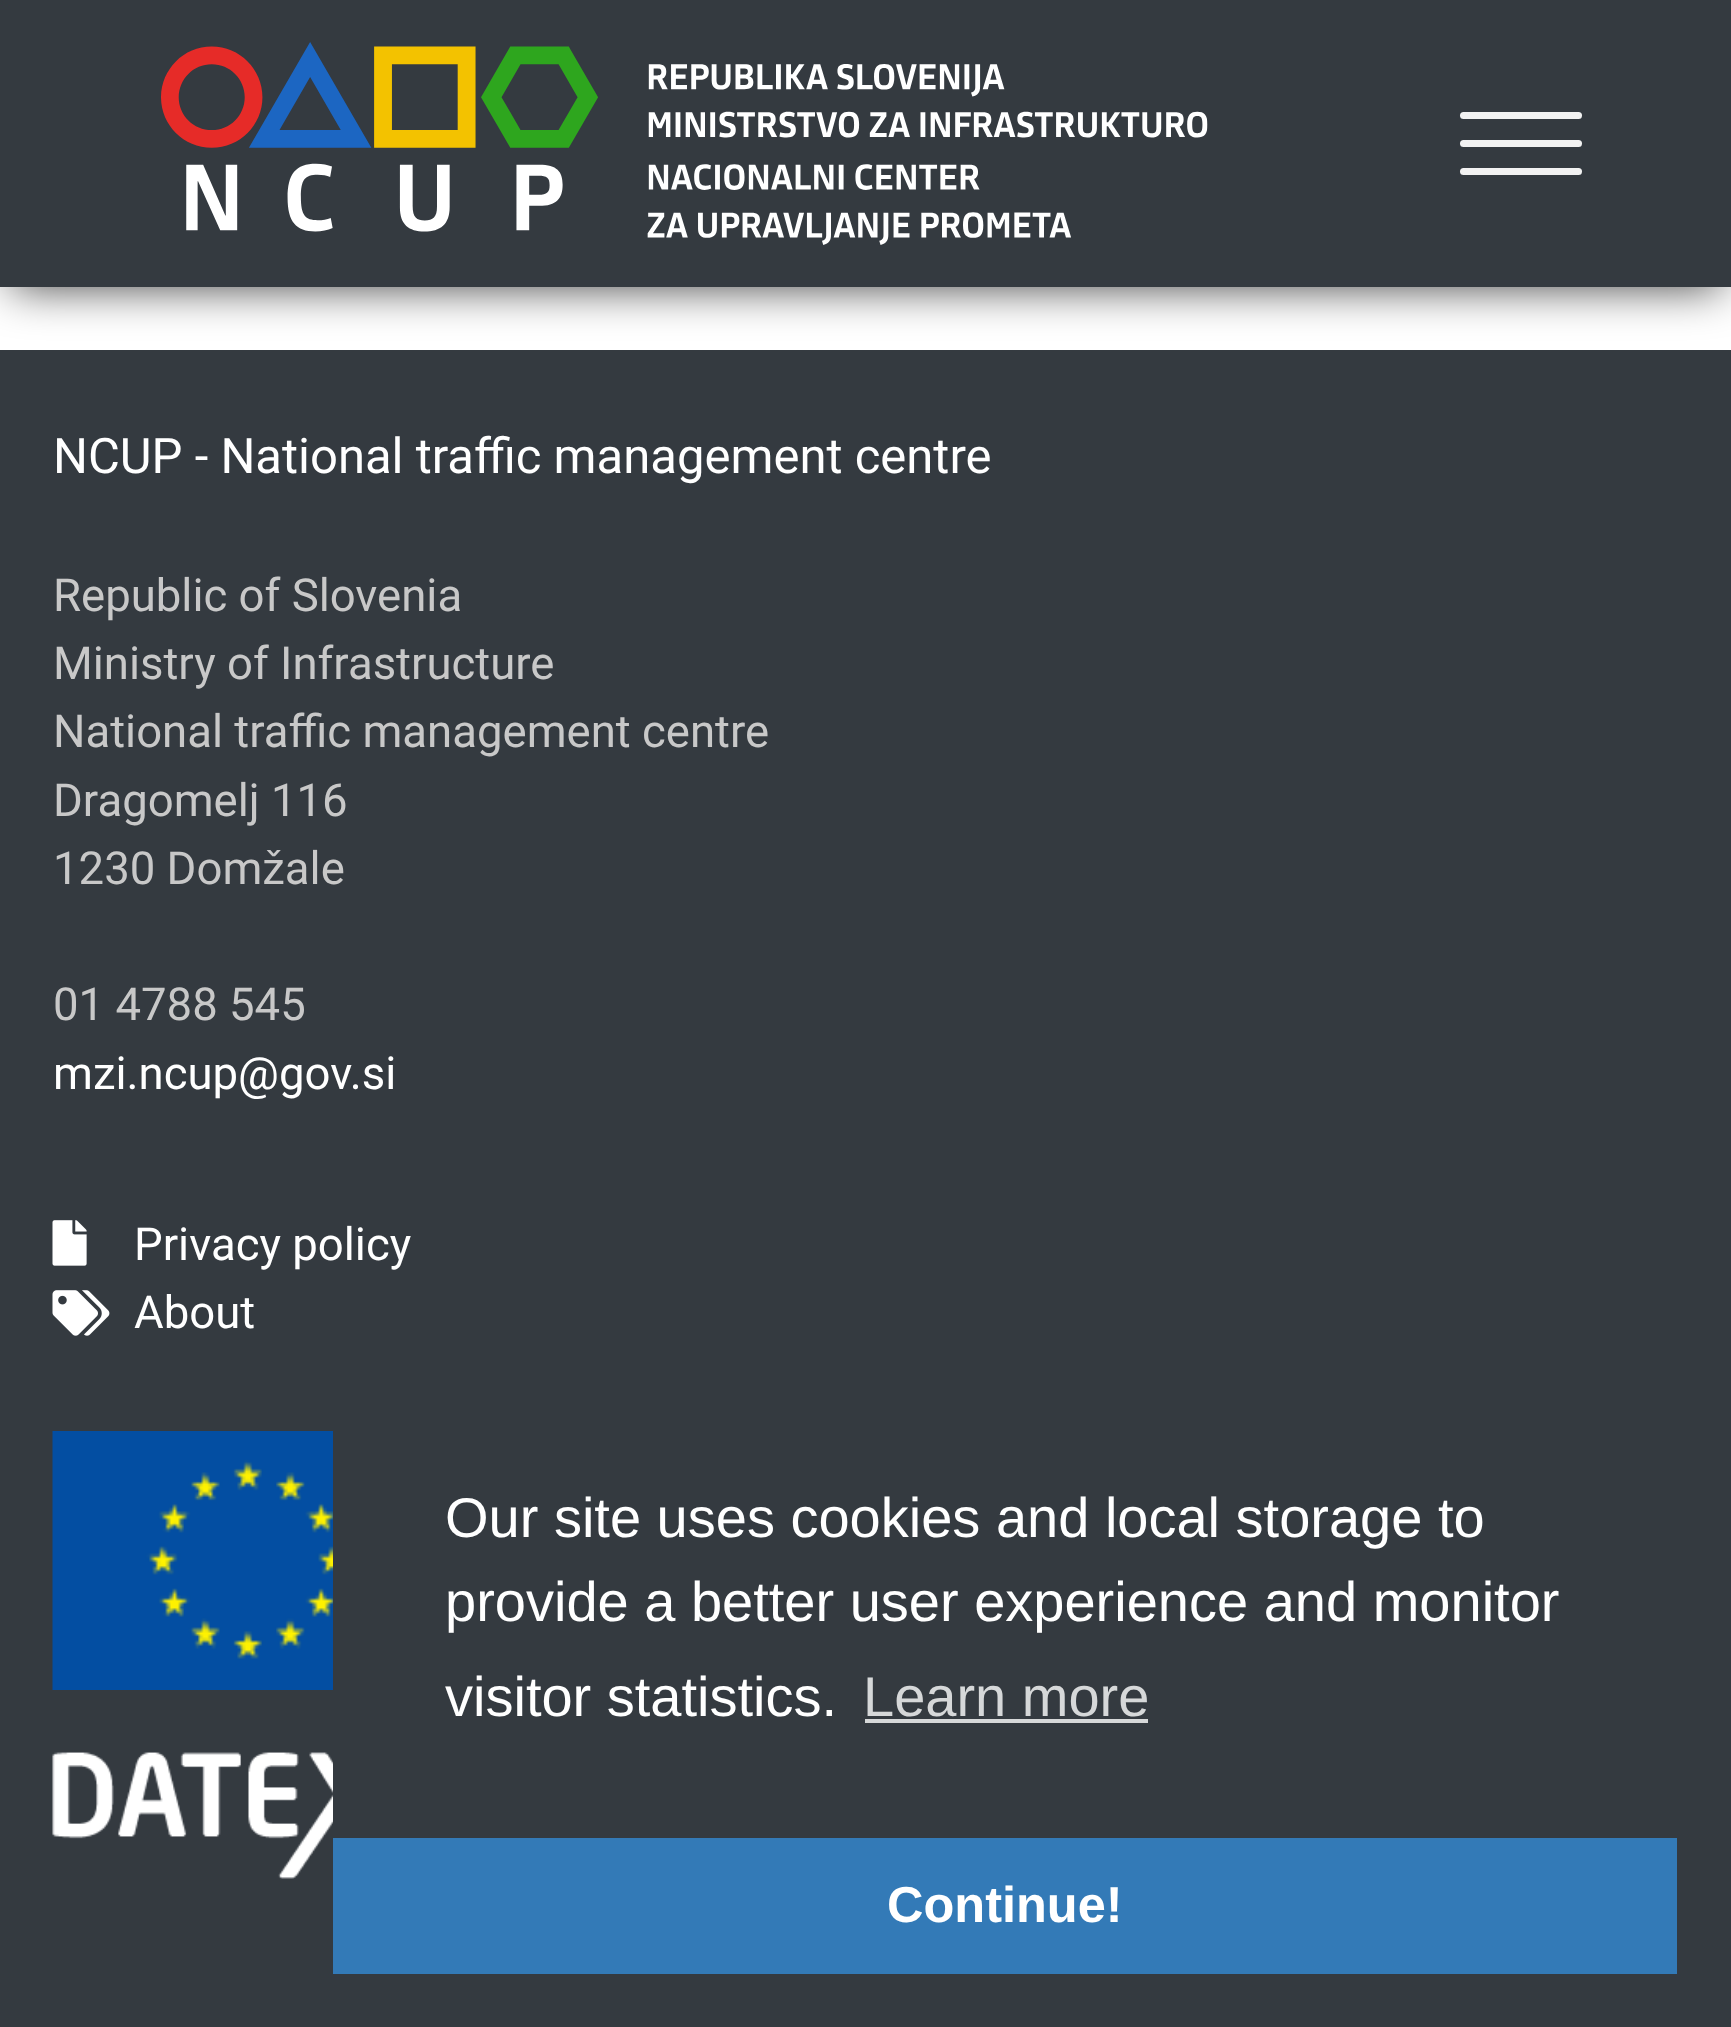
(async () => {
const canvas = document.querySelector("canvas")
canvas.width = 1731
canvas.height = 2027
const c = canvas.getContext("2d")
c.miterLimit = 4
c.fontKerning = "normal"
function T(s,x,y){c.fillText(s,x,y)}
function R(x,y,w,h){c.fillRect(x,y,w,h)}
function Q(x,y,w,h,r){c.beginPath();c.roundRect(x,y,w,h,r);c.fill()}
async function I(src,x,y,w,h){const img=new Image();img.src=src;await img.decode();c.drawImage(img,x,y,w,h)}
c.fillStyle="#fff"
R(0,0,1731,2027)
c.fillStyle="#343a40"
R(0,350,1731,1677)
c.fillStyle="#000000bf"
c.filter="blur(23px)"
c.beginPath()
c.rect(11,21,1711,266)
c.fill()
c.filter="none"
c.fillStyle="#343a40"
R(0,0,1731,287)
await I("1.png",161,42,1047,203)
c.fillStyle="#f2f2f2"
Q(1460,112,122,7,3.5)
Q(1460,140,122,7,3.5)
Q(1460,168,122,7,3.5)
c.font="49px Roboto"
c.fillStyle="#fff"
T("NCUP - National traffic management centre",53,473)
c.font="45.5px Roboto"
c.fillStyle="#c8c8c8"
T("Republic of Slovenia",53,611)
T("Ministry of Infrastructure",53,679)
T("National traffic management centre",53,747)
T("Dragomelj 116",53,816)
T("1230 Domžale",53,884)
T("01 4788 545",53,1020)
c.fillStyle="#fff"
T("mzi.ncup@gov.si",53,1089)
await I("2.png",52,1220,35,46)
T("Privacy policy",134,1260)
await I("3.png",52,1290,58,46)
T("About",134,1328)
await I("4.png",52,1431,281,259)
await I("5.png",52,1752,281,127)
c.font="56px Liberation Sans"
T("Our site uses cookies and local storage to",445,1537)
T("provide a better user experience and monitor",445,1621)
T("visitor statistics.",445,1716)
c.fillStyle="#d6d8d9"
T("Learn more",863,1716)
R(865,1719,283,4)
c.fillStyle="#337ab7"
R(333,1838,1344,136)
c.font="bold 50.5px Liberation Sans"
c.fillStyle="#fff"
T("Continue!",887,1922)
})()
